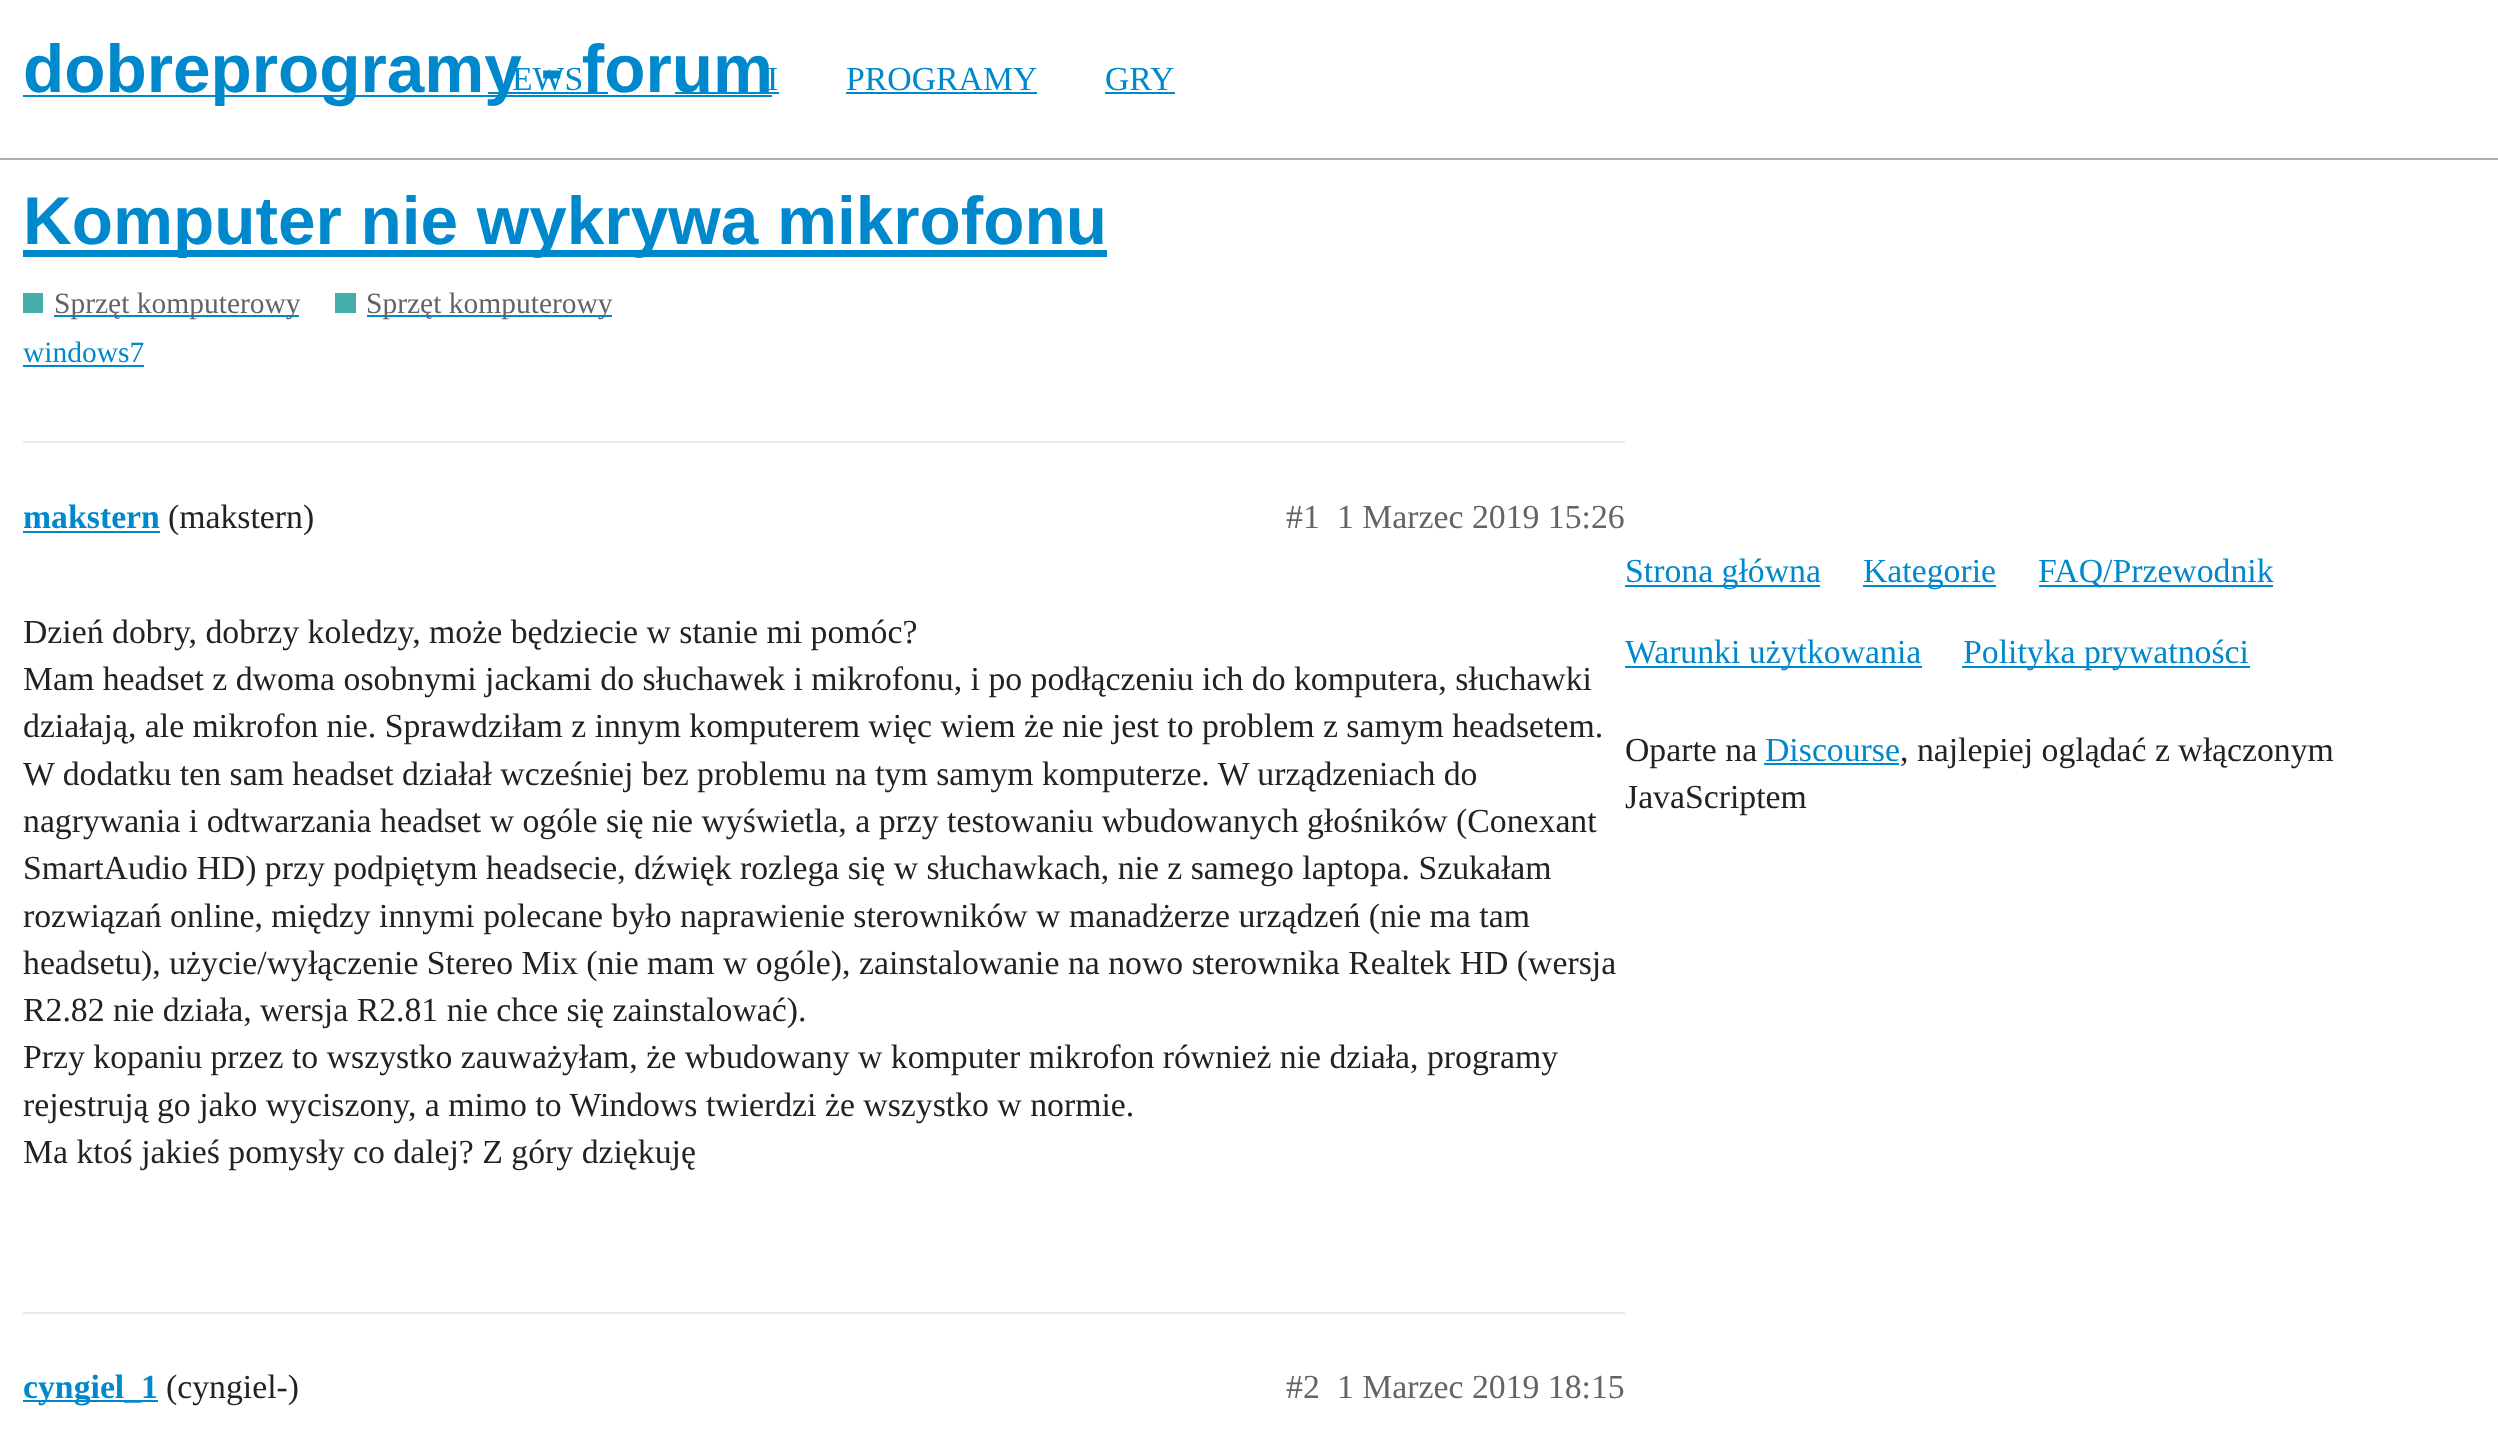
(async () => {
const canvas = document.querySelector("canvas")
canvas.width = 2498
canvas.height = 1436
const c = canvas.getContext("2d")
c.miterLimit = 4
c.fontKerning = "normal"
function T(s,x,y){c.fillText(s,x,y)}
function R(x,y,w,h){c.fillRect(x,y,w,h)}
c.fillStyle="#fff"
R(0,0,2498,1436)
c.fillStyle="#afafaf"
R(0,158,2498,2)
c.fillStyle="#08c"
R(23,95,749,2)
c.font="bold 67.5px Liberation Sans"
T("dobreprogramy - forum",23,92)
c.font="33.75px Liberation Serif"
T("EWS",512,90)
R(488,92,120,2)
T("I",767,90)
R(675,92,104,2)
T("PROGRAMY",846,90)
R(846,92,191,2)
T("GRY",1105,90)
R(1105,92,70,2)
R(23,250,1084,7)
c.font="bold 67.5px Liberation Sans"
T("Komputer nie wykrywa mikrofonu",23,244)
c.fillStyle="#45ada8"
R(23,293,20,20)
c.fillStyle="#08c"
R(54,315,245,2)
c.font="29.5px Liberation Serif"
c.fillStyle="#646464"
T("Sprzęt komputerowy",54,313)
c.fillStyle="#45ada8"
R(335,293,21,20)
c.fillStyle="#08c"
R(367,315,245,2)
c.fillStyle="#646464"
T("Sprzęt komputerowy",366,313)
c.fillStyle="#08c"
T("windows7",23,362)
R(23,365,121,2)
c.fillStyle="#e9e9e9"
R(23,441,1602,2)
c.font="bold 33.75px Liberation Serif"
c.fillStyle="#08c"
T("makstern",23,528)
R(23,531,137,2)
c.font="33.75px Liberation Serif"
c.fillStyle="#222"
T("(makstern)",168,528)
c.fillStyle="#646464"
T("#1",1286,528)
T("1 Marzec 2019 15:26",1337,528)
c.fillStyle="#222"
T("Dzień dobry, dobrzy koledzy, może będziecie w stanie mi pomóc?",23,643)
T("Mam headset z dwoma osobnymi jackami do słuchawek i mikrofonu, i po podłączeniu ich do komputera, słuchawki",23,690)
T("działają, ale mikrofon nie. Sprawdziłam z innym komputerem więc wiem że nie jest to problem z samym headsetem.",23,737)
T("W dodatku ten sam headset działał wcześniej bez problemu na tym samym komputerze. W urządzeniach do",23,785)
T("nagrywania i odtwarzania headset w ogóle się nie wyświetla, a przy testowaniu wbudowanych głośników (Conexant",23,832)
T("SmartAudio HD) przy podpiętym headsecie, dźwięk rozlega się w słuchawkach, nie z samego laptopa. Szukałam",23,879)
T("rozwiązań online, między innymi polecane było naprawienie sterowników w manadżerze urządzeń (nie ma tam",23,927)
T("headsetu), użycie/wyłączenie Stereo Mix (nie mam w ogóle), zainstalowanie na nowo sterownika Realtek HD (wersja",23,974)
T("R2.82 nie działa, wersja R2.81 nie chce się zainstalować).",23,1021)
T("Przy kopaniu przez to wszystko zauważyłam, że wbudowany w komputer mikrofon również nie działa, programy",23,1068)
T("rejestrują go jako wyciszony, a mimo to Windows twierdzi że wszystko w normie.",23,1116)
T("Ma ktoś jakieś pomysły co dalej? Z góry dziękuję",23,1163)
c.fillStyle="#e9e9e9"
R(23,1312,1602,2)
c.fillStyle="#08c"
R(23,1400,135,2)
c.font="bold 33.75px Liberation Serif"
T("cyngiel_1",23,1398)
c.font="33.75px Liberation Serif"
c.fillStyle="#222"
T("(cyngiel-)",166,1398)
c.fillStyle="#646464"
T("#2",1286,1398)
T("1 Marzec 2019 18:15",1337,1398)
c.fillStyle="#08c"
R(1625,585,195,2)
T("Strona główna",1625,582)
R(1863,585,133,2)
T("Kategorie",1863,582)
R(2039,585,234,2)
T("FAQ/Przewodnik",2038,582)
R(1625,666,297,2)
T("Warunki użytkowania",1625,663)
R(1962,666,288,2)
T("Polityka prywatności",1963,663)
c.fillStyle="#222"
T("Oparte na",1625,761)
c.fillStyle="#08c"
T("Discourse",1765,761)
R(1764,763,135,2)
c.fillStyle="#222"
T(", najlepiej oglądać z włączonym",1900,761)
T("JavaScriptem",1625,808)
})()
